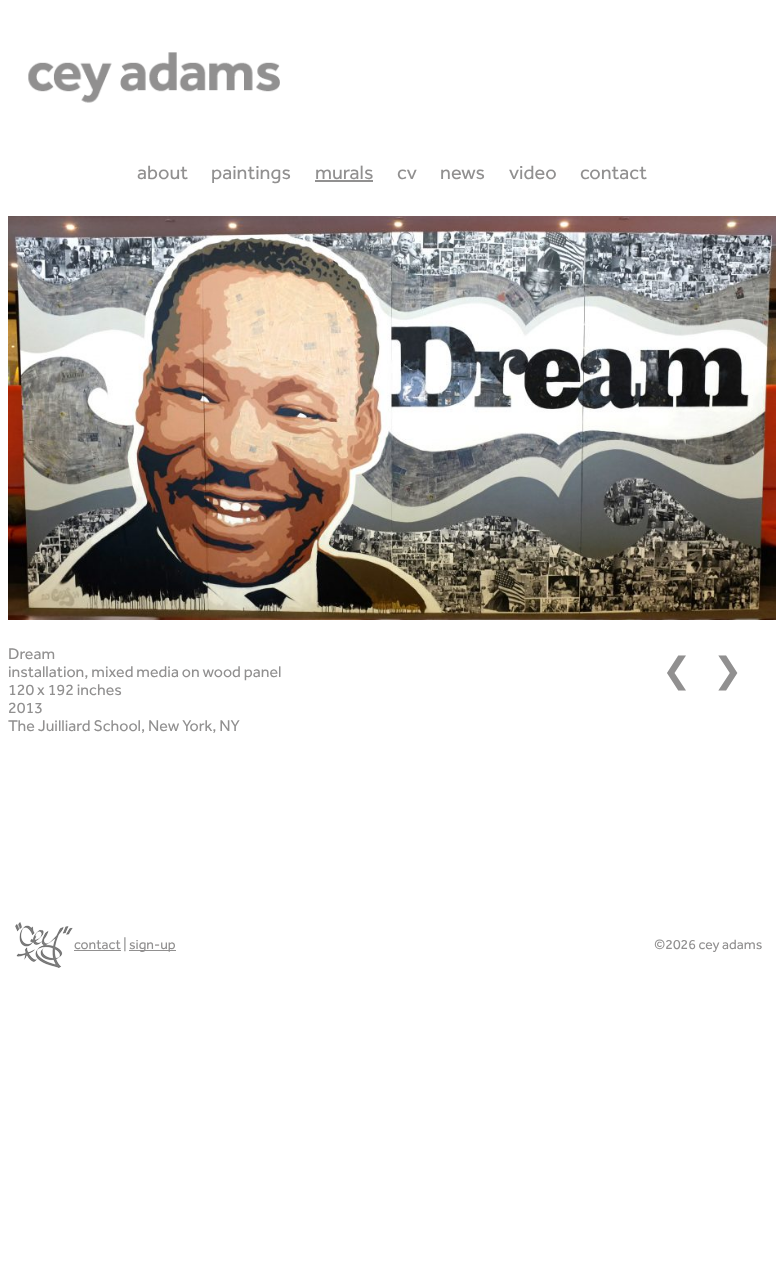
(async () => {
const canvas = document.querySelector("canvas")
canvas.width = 784
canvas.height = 1275
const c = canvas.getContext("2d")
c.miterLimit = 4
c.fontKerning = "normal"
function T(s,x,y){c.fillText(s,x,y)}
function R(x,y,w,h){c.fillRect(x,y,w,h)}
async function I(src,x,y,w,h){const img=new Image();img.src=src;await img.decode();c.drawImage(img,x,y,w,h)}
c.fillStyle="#fff"
R(0,0,784,1275)
await I("1.png",28,52,252,51)
c.font="20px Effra"
c.fillStyle="#919090"
T("about",137,179)
T("paintings",211,179)
T("murals",315,179)
R(315,180,58,2)
T("cv",397,179)
T("news",440,179)
T("video",509,179)
T("contact",580,179)
await I("2.png",8,216,768,404)
c.font="16px Effra"
T("Dream",8,659)
T("installation, mixed media on wood panel",8,677)
T("120 x 192 inches",8,695)
T("2013",8,713)
T("The Juilliard School, New York, NY",8,731)
c.font="35px DejaVu Sans"
T("❮",662,682)
T("❯",713,682)
await I("3.png",15,922,58,46)
R(74,950,47,1)
c.font="14px Effra"
T("contact |",74,949)
R(129,950,47,1)
T("sign-up",129,949)
T("©2026 cey adams",654,949)
})()
